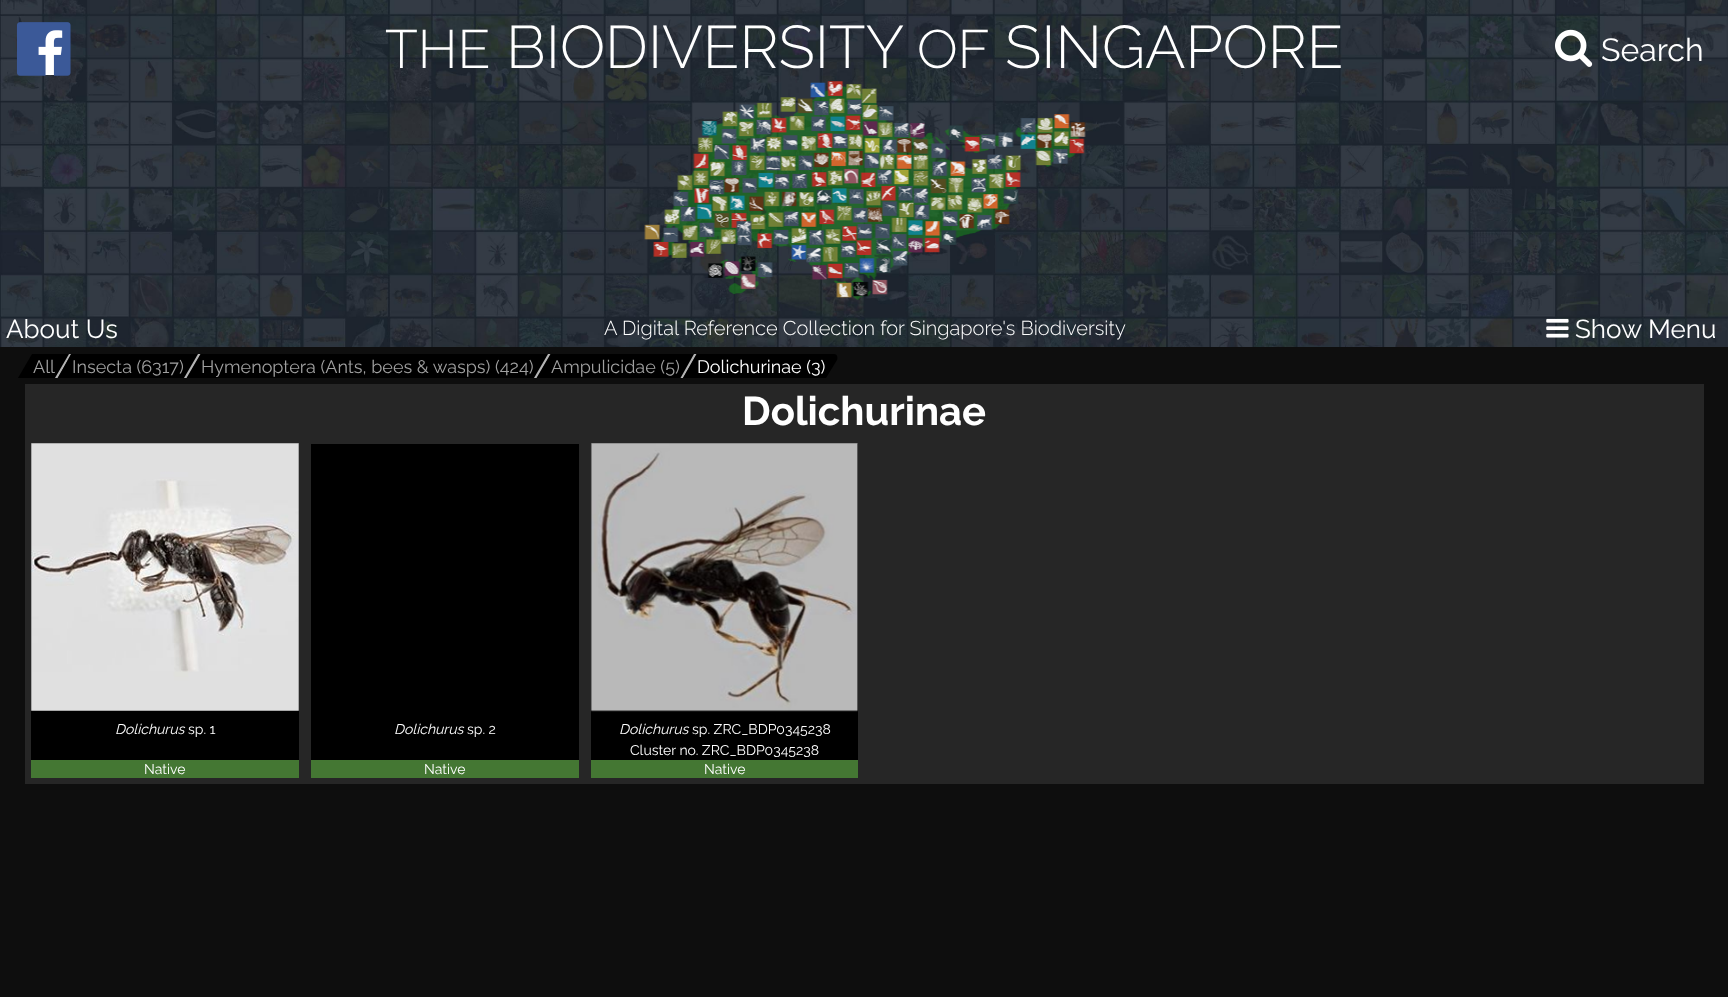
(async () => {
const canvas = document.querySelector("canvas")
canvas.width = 1728
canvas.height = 997
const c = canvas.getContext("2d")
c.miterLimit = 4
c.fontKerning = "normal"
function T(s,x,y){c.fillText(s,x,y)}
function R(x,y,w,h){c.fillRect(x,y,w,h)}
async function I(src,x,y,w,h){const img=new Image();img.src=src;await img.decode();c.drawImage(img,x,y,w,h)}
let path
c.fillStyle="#0e0e0e"
R(0,0,1728,997)
await I("1.png",0,0,1728,347)
c.fillStyle="#fff"
R(38,30,25,45)
await I("2.png",16,22,55,54)
c.font="300 54px Raleway"
T("THE",385,68)
c.font="300 60px Raleway"
T("BIODIVERSITY",506,68)
c.font="300 54px Raleway"
T("OF",917,68)
c.font="300 60px Raleway"
T("SINGAPORE",1005,68)
await I("3.png",1555,29,38,38)
c.font="32px Raleway"
T("Search",1601,61)
await I("4.png",644,81,442,219)
c.font="26px Raleway"
T("About Us",6,338)
c.font="300 20px Raleway"
T("A Digital Reference Collection for Singapore's Biodiversity",604,335)
await I("5.png",1546,318,23,20)
c.font="26px Raleway"
T("Show Menu",1575,338)
c.fillStyle="#000"
path = new Path2D("M32 354h39l-13 24h-40z")
c.fill(path)
c.fillStyle="#b5b5b5"
path = new Path2D("M69 354h2.5l-14 24h-2.5z")
c.fill(path)
c.font="18px Raleway"
c.fillStyle="#a0a0a0"
T("All",33,373)
c.fillStyle="#000"
path = new Path2D("M71 354h130l-14 24h-129z")
c.fill(path)
c.fillStyle="#b5b5b5"
path = new Path2D("M198 354h2.5l-14 24h-2.5z")
c.fill(path)
c.fillStyle="#a0a0a0"
T("Insecta (6317)",72,373)
c.fillStyle="#000"
path = new Path2D("M201 354h350l-14 24h-350z")
c.fill(path)
c.fillStyle="#b5b5b5"
path = new Path2D("M548 354h2.5l-14 24h-2.5z")
c.fill(path)
c.fillStyle="#a0a0a0"
T("Hymenoptera (Ants, bees & wasps) (424)",201,373)
c.fillStyle="#000"
path = new Path2D("M551 354h146l-14 24h-146z")
c.fill(path)
c.fillStyle="#b5b5b5"
path = new Path2D("M694 354h2.5l-13.5 24h-2.5z")
c.fill(path)
c.fillStyle="#a0a0a0"
T("Ampulicidae (5)",551,373)
c.fillStyle="#000"
path = new Path2D("M697 354h137c3 0 4 3 3 6l-11 18h-143z")
c.fill(path)
c.fillStyle="#fff"
T("Dolichurinae (3)",697,373)
c.fillStyle="#262626"
R(25,384,1679,400)
c.font="bold 40px Raleway"
c.fillStyle="#fff"
T("Dolichurinae",742,425)
c.fillStyle="#000"
R(31,444,268,316)
await I("6.png",31,443,268,268)
c.font="italic 14px Raleway"
c.fillStyle="#fff"
T("Dolichurus",115,734)
c.font="14px Raleway"
T("sp. 1",188,734)
c.fillStyle="#473"
R(31,760,268,18)
c.fillStyle="#fff"
T("Native",144,774)
c.fillStyle="#000"
R(311,444,268,316)
c.font="italic 14px Raleway"
c.fillStyle="#fff"
T("Dolichurus",394,734)
c.font="14px Raleway"
T("sp. 2",467,734)
c.fillStyle="#473"
R(311,760,268,18)
c.fillStyle="#fff"
T("Native",424,774)
c.fillStyle="#000"
R(591,444,267,316)
await I("7.png",590,443,268,269)
c.font="italic 14px Raleway"
c.fillStyle="#fff"
T("Dolichurus",619,734)
c.font="14px Raleway"
T("sp. ZRC_BDP0345238",692,734)
T("Cluster no. ZRC_BDP0345238",630,755)
c.fillStyle="#473"
R(591,760,267,18)
c.fillStyle="#fff"
T("Native",704,774)
})()
